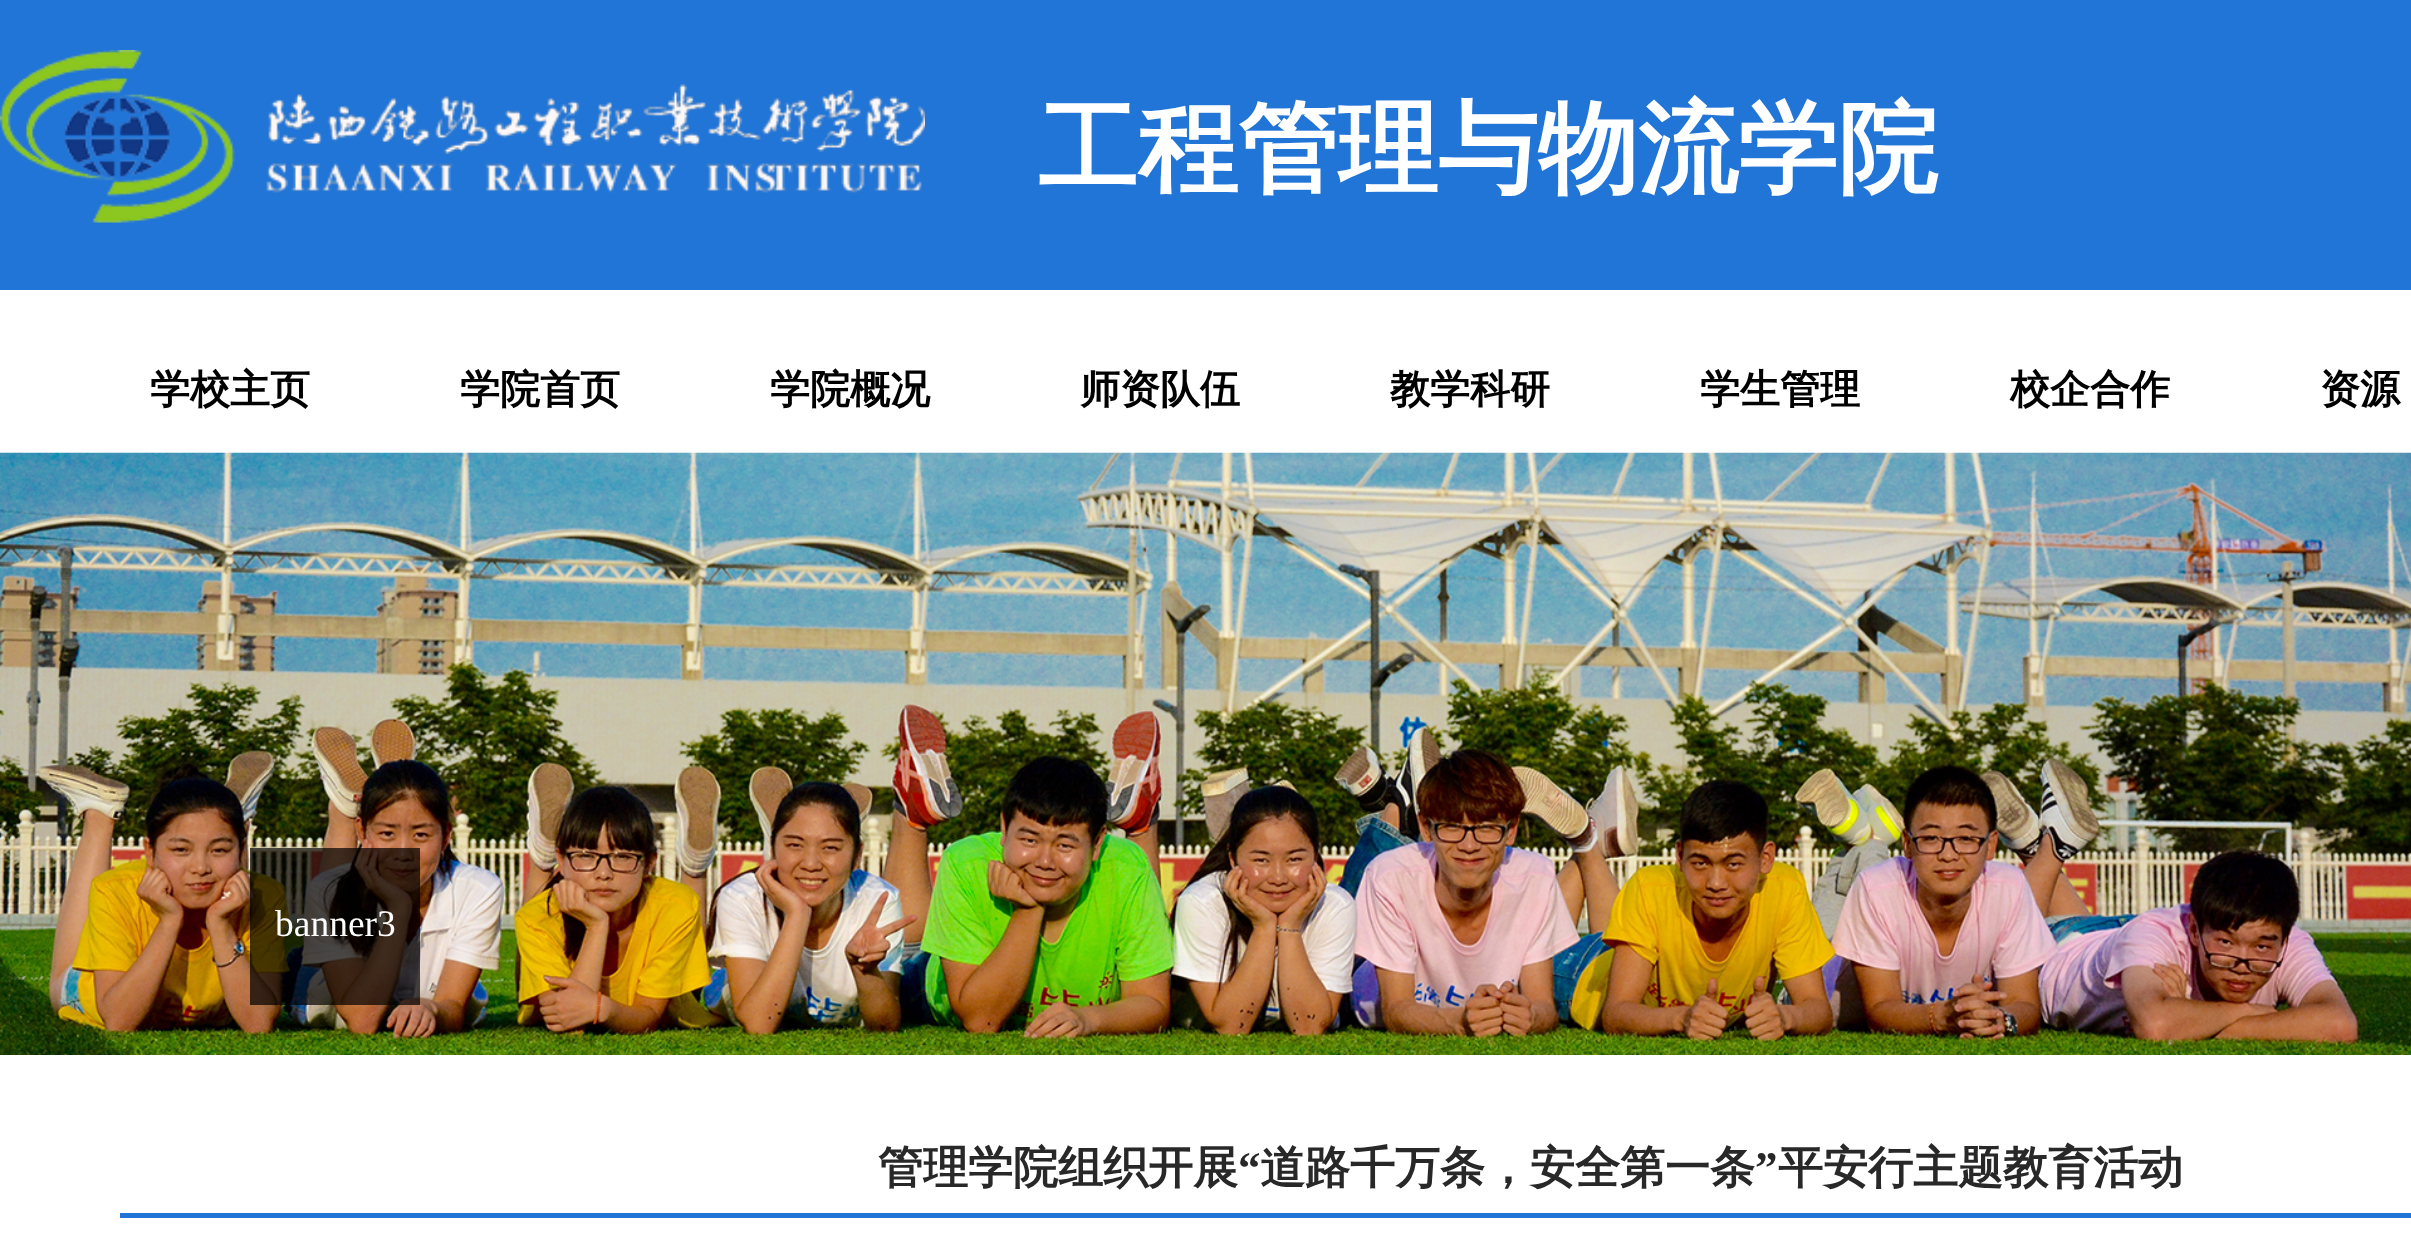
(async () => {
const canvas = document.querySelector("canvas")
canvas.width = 2411
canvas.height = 1256
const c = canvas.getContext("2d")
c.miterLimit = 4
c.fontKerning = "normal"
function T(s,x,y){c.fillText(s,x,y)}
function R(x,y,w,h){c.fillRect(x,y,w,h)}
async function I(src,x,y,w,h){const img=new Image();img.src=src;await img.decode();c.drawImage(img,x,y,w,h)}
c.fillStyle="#fff"
R(0,0,2411,1256)
c.fillStyle="#2175d7"
R(0,0,2411,290)
await I("1.png",0,50,925,173)
c.font="bold 100px WenQuanYi Zen Hei"
c.fillStyle="#fff"
T("工程管理与物流学院",1038,183)
c.font="bold 40px WenQuanYi Zen Hei"
c.fillStyle="#000"
T("学校主页",150,403)
T("学院首页",460,403)
T("学院概况",770,403)
T("师资队伍",1080,403)
T("教学科研",1390,403)
T("学生管理",1700,403)
T("校企合作",2010,403)
T("资源",2320,403)
await I("2.png",0,452,2411,603)
c.fillStyle="#000000b3"
R(250,848,170,157)
c.font="37.5px Liberation Serif"
c.fillStyle="#fff"
T("banner3",275,936)
c.fillStyle="#2175d7"
R(120,1213,2291,5)
c.font="bold 45px WenQuanYi Zen Hei"
c.fillStyle="#282828"
T("管理学院组织开展",878,1183)
c.font="bold 45px Liberation Serif"
T("“",1238,1183)
c.font="bold 45px WenQuanYi Zen Hei"
T("道路千万条，安全第一条",1260,1183)
c.font="bold 45px Liberation Serif"
T("”",1755,1183)
c.font="bold 45px WenQuanYi Zen Hei"
T("平安行主题教育活动",1778,1183)
})()
